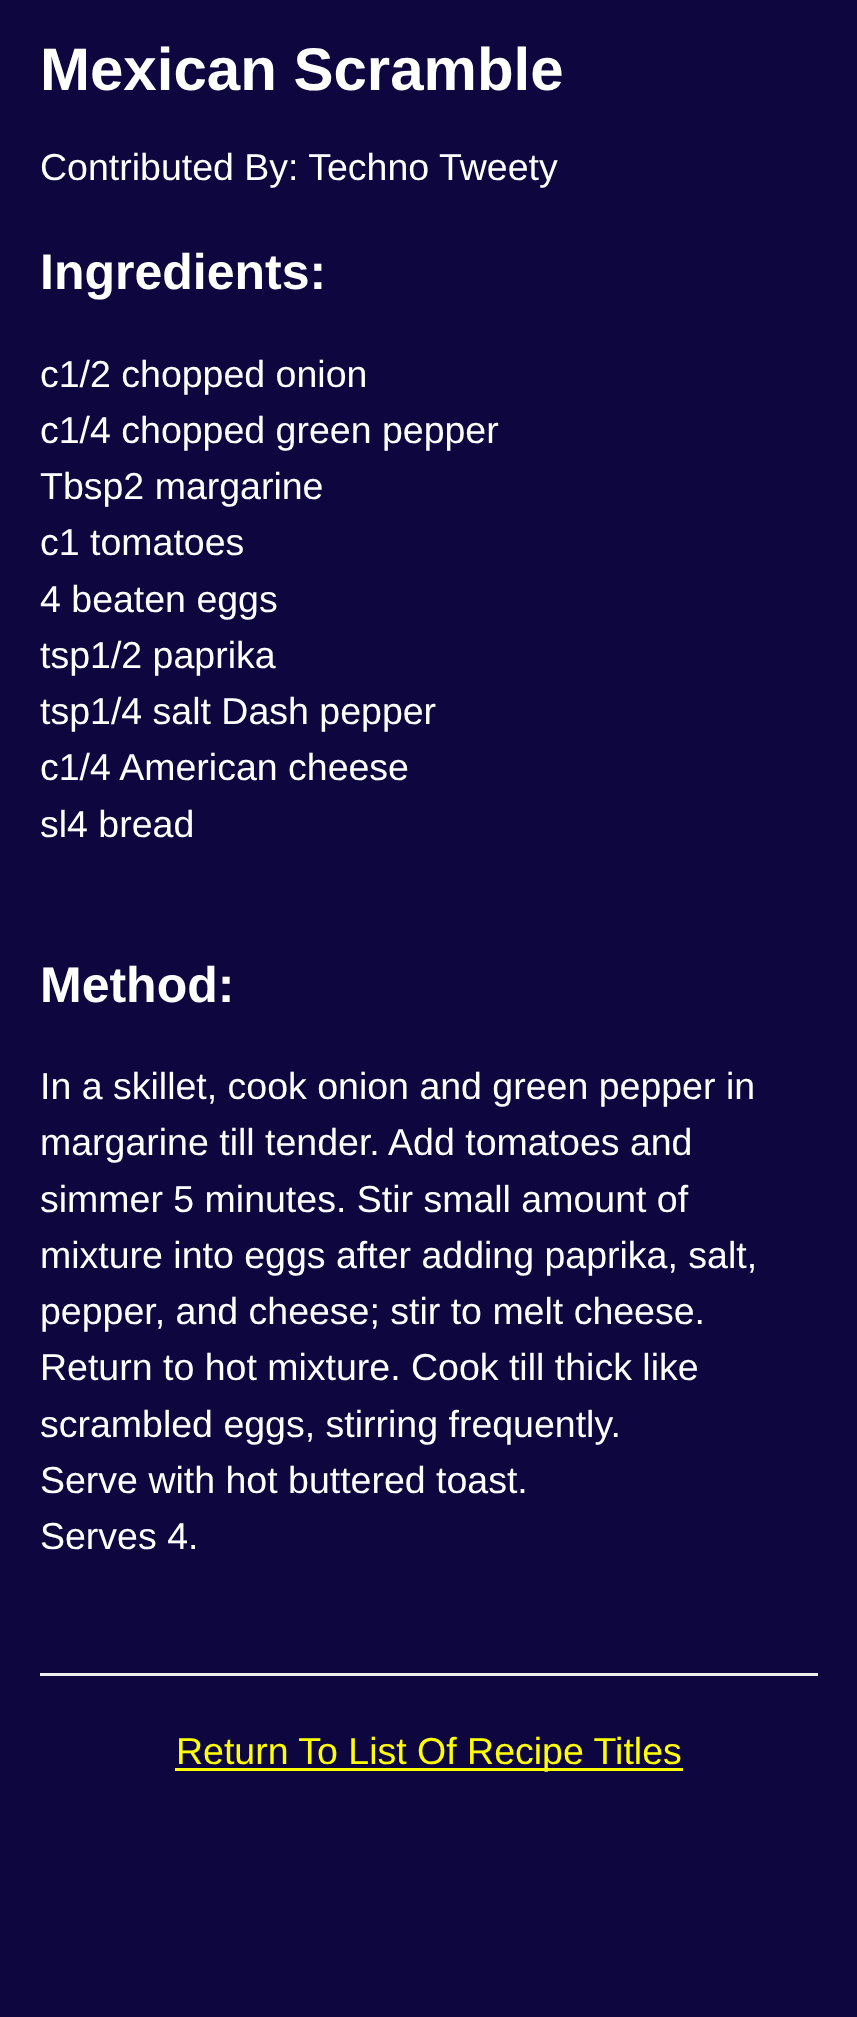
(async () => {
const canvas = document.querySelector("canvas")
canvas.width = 857
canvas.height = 2017
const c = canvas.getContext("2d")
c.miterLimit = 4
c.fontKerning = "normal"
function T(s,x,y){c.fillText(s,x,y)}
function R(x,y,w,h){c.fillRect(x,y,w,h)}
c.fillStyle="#0e063f"
R(0,0,857,2017)
c.font="bold 60px Liberation Sans"
c.fillStyle="#fff"
T("Mexican Scramble",40,90)
c.font="37.5px Liberation Sans"
T("Contributed By: Techno Tweety",40,180)
c.font="bold 50px Liberation Sans"
T("Ingredients:",40,289)
c.font="37.5px Liberation Sans"
T("c1/2 chopped onion",40,387)
T("c1/4 chopped green pepper",40,443)
T("Tbsp2 margarine",40,499)
T("c1 tomatoes",40,555)
T("4 beaten eggs",40,612)
T("tsp1/2 paprika",40,668)
T("tsp1/4 salt Dash pepper",40,724)
T("c1/4 American cheese",40,780)
T("sl4 bread",40,837)
c.font="bold 50px Liberation Sans"
T("Method:",40,1002)
c.font="37.5px Liberation Sans"
T("In a skillet, cook onion and green pepper in",40,1099)
T("margarine till tender. Add tomatoes and",40,1155)
T("simmer 5 minutes. Stir small amount of",40,1212)
T("mixture into eggs after adding paprika, salt,",40,1268)
T("pepper, and cheese; stir to melt cheese.",40,1324)
T("Return to hot mixture. Cook till thick like",40,1380)
T("scrambled eggs, stirring frequently.",40,1437)
T("Serve with hot buttered toast.",40,1493)
T("Serves 4.",40,1549)
c.fillStyle="#eee"
R(40,1673,778,3)
c.fillStyle="#ff0"
R(175,1768,508,3)
T("Return To List Of Recipe Titles",176,1764)
})()
